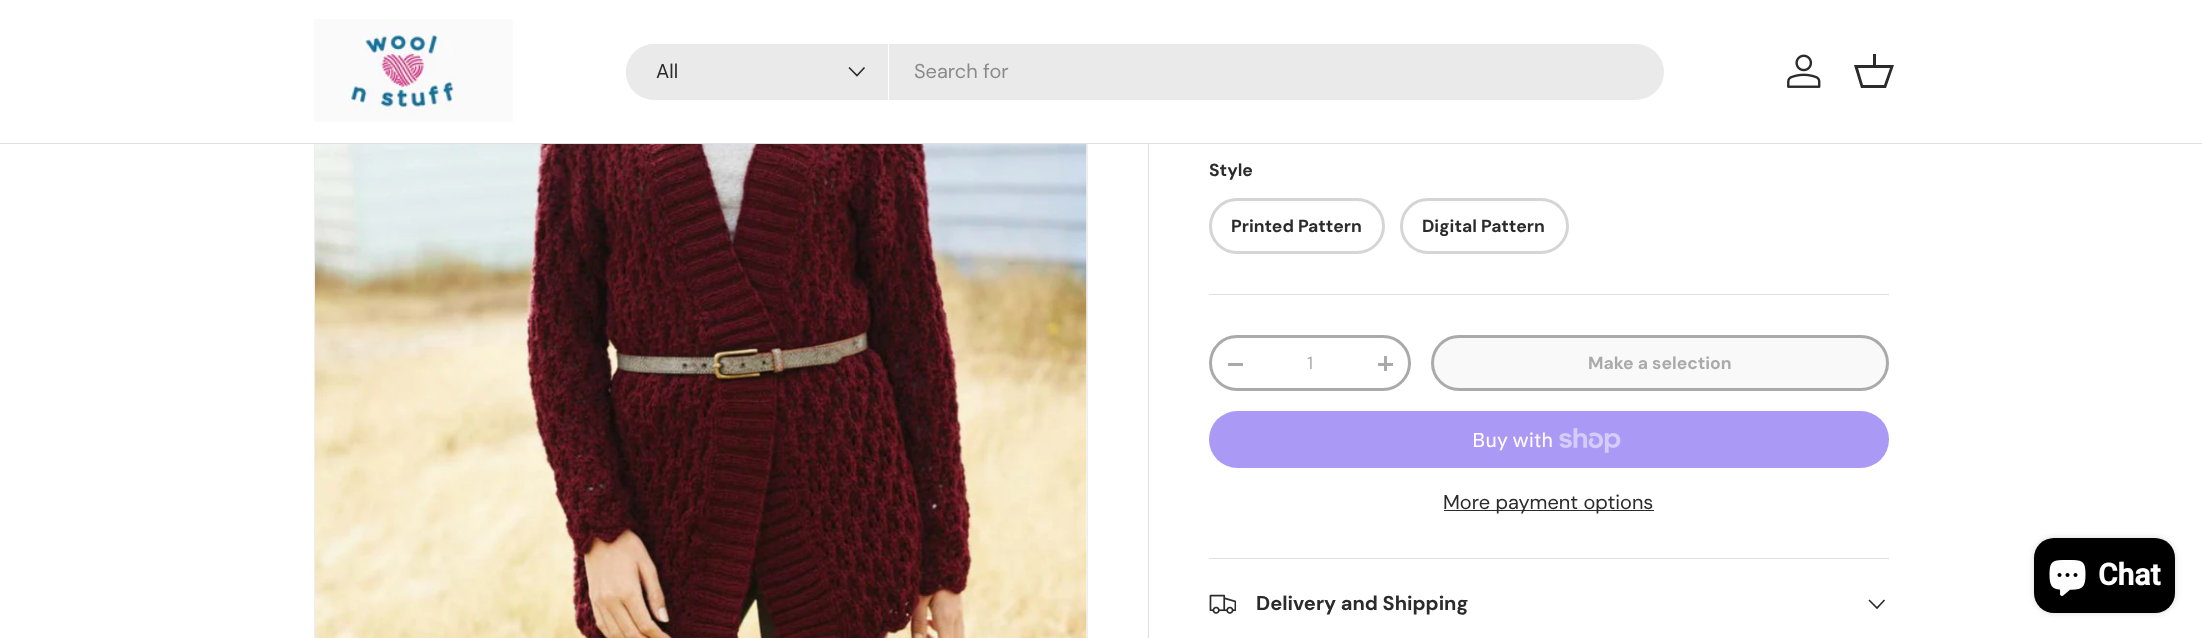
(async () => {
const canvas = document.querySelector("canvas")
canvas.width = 2202
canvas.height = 638
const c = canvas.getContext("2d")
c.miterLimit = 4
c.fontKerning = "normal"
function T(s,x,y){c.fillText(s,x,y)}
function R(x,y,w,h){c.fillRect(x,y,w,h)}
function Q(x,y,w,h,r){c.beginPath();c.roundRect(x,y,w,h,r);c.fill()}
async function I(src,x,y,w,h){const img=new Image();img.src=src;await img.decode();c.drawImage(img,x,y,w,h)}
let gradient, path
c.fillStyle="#fff"
R(0,0,2202,638)
c.fillStyle="#f4f4f4"
R(1086,144,1,494)
c.strokeStyle="#eee"
c.strokeRect(314.5,-.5,773,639)
c.fillStyle="#fff"
R(314,0,774,143)
c.fillStyle="#dfdfdf"
R(0,143,2202,1)
await I("1.png",314,19,199,103)
c.fillStyle="#eaeaea"
Q(626,44,1038,56,28)
c.beginPath()
c.roundRect(626,44,263,56,[28,0,0,28])
c.fill()
c.fillStyle="#fff"
R(888,44,1,56)
c.font="20px DM Sans"
c.fillStyle="#2a2b2a"
T("All",656,78)
path = new Path2D("M864.5 67.5l-7.5 8l-8-8")
c.strokeStyle="#2a2b2a"
c.lineWidth=1.6
c.stroke(path)
c.fillStyle="#8a8b8a"
T("Search for",914,78)
await I("2.png",1787,54,34,34)
c.fillStyle="#2a2b2a"
path = new Path2D("M1873 65v-11h3v11h18l-8 23h-25l-7-23zm-15 3l5 17h21l6-17z")
c.fill(path)
await I("3.png",315,144,772,494)
c.fillStyle="#dfdfdf"
R(1148,144,1,494)
c.font="bold 17.5px DM Sans"
c.fillStyle="#2a2b2a"
T("Style",1209,176)
c.beginPath()
c.roundRect(1210.5,199.5,173,53,26.5)
c.strokeStyle="#d4d5d4"
c.lineWidth=3
c.stroke()
T("Printed Pattern",1231,232)
c.beginPath()
c.roundRect(1401.5,199.5,166,53,26.5)
c.stroke()
T("Digital Pattern",1422,232)
c.fillStyle="#dfdfdf"
R(1209,294,680,1)
c.beginPath()
c.roundRect(1210.5,336.5,199,53,26.5)
c.strokeStyle="#aaa"
c.stroke()
c.fillStyle="#aaa"
R(1228,363,15,3)
c.font="17.5px 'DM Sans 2'"
T("1",1307,369)
R(1378,363,15,3)
R(1384,356,3,15)
c.save()
c.beginPath()
c.roundRect(1431,335,458,56,28)
c.clip()
gradient = c.createLinearGradient(1467,202,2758,524)
gradient.addColorStop(.6,"#f9f9f9")
gradient.addColorStop(.6,"#fff")
gradient.addColorStop(1,"#fff")
c.fillStyle = gradient
R(1434,338,455,51)
c.restore()
c.beginPath()
c.roundRect(1432.5,336.5,455,53,26.5)
c.stroke()
c.font="bold 17.5px DM Sans"
T("Make a selection",1588,369)
c.fillStyle="#aa99f5"
Q(1209,411,680,57,28.5)
c.font="20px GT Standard"
c.fillStyle="#fff"
T("Buy with",1472,447)
await I("4.png",1559,428,62,25)
c.fillStyle="#2a2b2a"
R(1444,510,210,1)
c.font="20px DM Sans"
T("More payment options",1443,509)
c.fillStyle="#dfdfdf"
R(1209,558,680,1)
await I("5.png",1209,594,27,20)
c.font="bold 20px 'DM Sans 2'"
c.fillStyle="#2a2b2a"
T("Delivery and Shipping",1256,610)
path = new Path2D("M1884.5 600l-7.5 8l-8-8")
c.strokeStyle="#2a2b2a"
c.lineWidth=1.6
c.stroke(path)
c.fillStyle="#00000026"
c.filter="blur(3px)"
c.beginPath()
c.roundRect(2034,538,141,75,20)
c.fill()
c.filter="none"
c.fillStyle="#000"
Q(2034,538,141,75,20)
await I("6.png",2049,560,37,36)
c.font="bold 30px Roboto"
c.fillStyle="#fff"
T("Chat",2098,585)
})()
